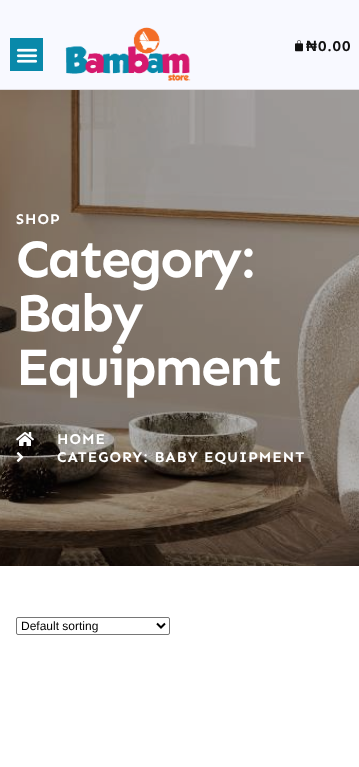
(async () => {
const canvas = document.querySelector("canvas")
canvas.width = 359
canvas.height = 767
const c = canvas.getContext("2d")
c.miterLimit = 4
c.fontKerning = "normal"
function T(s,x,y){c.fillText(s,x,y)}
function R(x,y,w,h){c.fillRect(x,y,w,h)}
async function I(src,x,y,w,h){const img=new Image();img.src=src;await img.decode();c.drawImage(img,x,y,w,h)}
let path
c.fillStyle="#fff"
R(0,0,359,767)
c.fillStyle="#f8f9ff"
R(0,0,359,89)
c.fillStyle="#e0dde0"
R(0,89,359,1)
c.fillStyle="#0989aa"
R(10,38,33,33)
await I("1.png",16,48,22,15)
await I("2.png",65,27,126,54)
await I("3.png",295,40,8,12)
c.letterSpacing="1px"
c.font="bold 15px Liberation Sans"
c.fillStyle="#111"
T("₦",306,51)
c.font="bold 15px Sen"
T("0.00",318,51)
await I("4.png",0,90,359,476)
c.fillStyle="#fff"
T("SHOP",16,224)
c.letterSpacing="-2.25px"
c.font="bold 54px Sen"
T("Category:",16,277)
T("Baby",16,331)
T("Equipment",16,385)
await I("5.png",16,432,18,14)
c.letterSpacing="1px"
c.font="bold 15px Sen"
T("HOME",57,444)
await I("6.png",16,452,8,10)
T("CATEGORY: BABY EQUIPMENT",57,462)
c.beginPath()
c.roundRect(16.5,617.5,153,17,1.5)
c.strokeStyle="#767676"
c.stroke()
path = new Path2D("M157 623.5l4 4l4-4")
c.strokeStyle="#000"
c.lineWidth=2
c.stroke(path)
c.letterSpacing="0px"
c.font="12px Liberation Sans"
c.fillStyle="#000"
T("Default sorting",21,630)
})()
